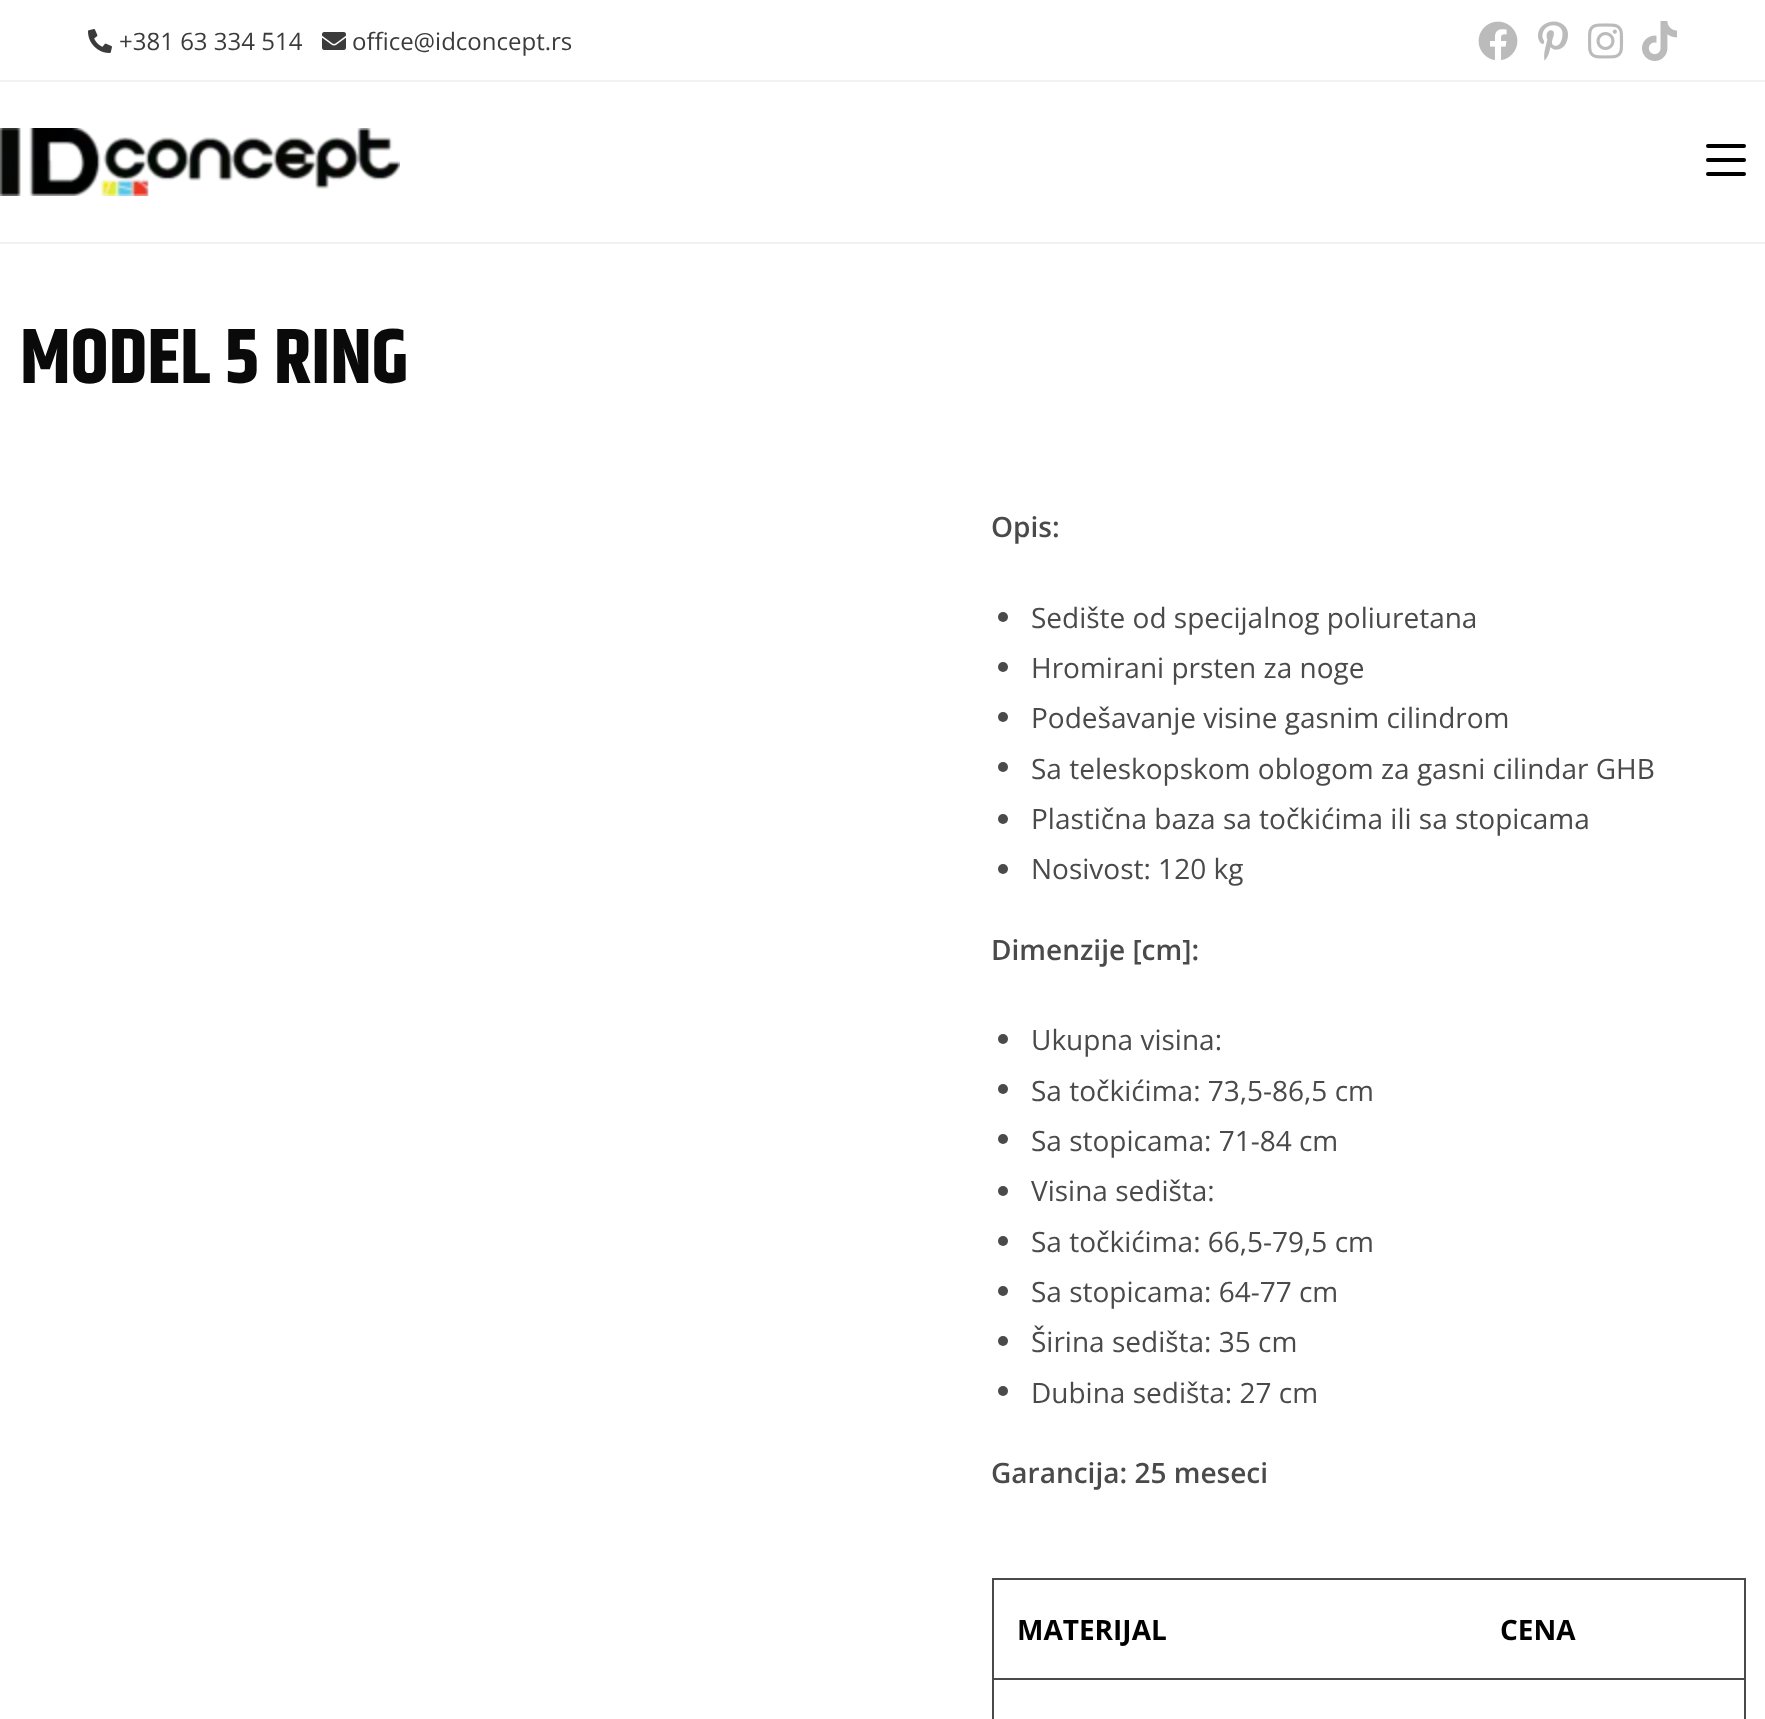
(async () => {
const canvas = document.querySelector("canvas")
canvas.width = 1765
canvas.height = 1719
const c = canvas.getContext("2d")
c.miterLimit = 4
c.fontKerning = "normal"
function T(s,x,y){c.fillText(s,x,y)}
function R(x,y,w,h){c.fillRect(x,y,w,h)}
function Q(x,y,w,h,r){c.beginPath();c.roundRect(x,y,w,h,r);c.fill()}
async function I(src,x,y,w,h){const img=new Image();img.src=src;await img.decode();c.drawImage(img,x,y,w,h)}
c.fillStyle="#fff"
R(0,0,1765,1719)
c.fillStyle="#f1f1f1"
R(0,80,1765,2)
await I("1.png",88,29,24,24)
c.font="24px Open Sans"
c.fillStyle="#3b3b3b"
T("+381 63 334 514",119,50)
await I("2.png",322,32,24,18)
T("office@idconcept.rs",352,50)
await I("3.png",1478,21,40,39)
await I("4.png",1538,21,30,40)
await I("5.png",1588,23,36,36)
await I("6.png",1642,21,35,40)
c.fillStyle="#f1f1f1"
R(0,242,1765,2)
await I("7.png",0,128,400,68)
c.fillStyle="#000"
Q(1706,158,40,4,2)
Q(1706,144,40,4,2)
Q(1706,172,40,4,2)
c.font="bold 78px Khand"
c.fillStyle="#0a0a0a"
T("MODEL 5 RING",20,383)
c.font="600 28px Open Sans"
c.fillStyle="#4a4a4a"
T("Opis:",991,537)
c.beginPath()
c.arc(1003,617,5,0,7)
c.fill()
c.font="28px Open Sans"
T("Sedište od specijalnog poliuretana",1031,628)
c.beginPath()
c.arc(1003,667,5,0,7)
c.fill()
T("Hromirani prsten za noge",1031,678)
c.beginPath()
c.arc(1003,717,5,0,7)
c.fill()
T("Podešavanje visine gasnim cilindrom",1031,728)
c.beginPath()
c.arc(1003,767,5,0,7)
c.fill()
T("Sa teleskopskom oblogom za gasni cilindar GHB",1031,779)
c.beginPath()
c.arc(1003,819,5,0,7)
c.fill()
T("Plastična baza sa točkićima ili sa stopicama",1031,829)
c.beginPath()
c.arc(1003,869,5,0,7)
c.fill()
T("Nosivost: 120 kg",1031,879)
c.font="600 28px Open Sans"
T("Dimenzije [cm]:",991,960)
c.beginPath()
c.arc(1003,1039,5,0,7)
c.fill()
c.font="28px Open Sans"
T("Ukupna visina:",1031,1050)
c.beginPath()
c.arc(1003,1089,5,0,7)
c.fill()
T("Sa točkićima: 73,5-86,5 cm",1031,1101)
c.beginPath()
c.arc(1003,1139,5,0,7)
c.fill()
T("Sa stopicama: 71-84 cm",1031,1151)
c.beginPath()
c.arc(1003,1191,5,0,7)
c.fill()
T("Visina sedišta:",1031,1201)
c.beginPath()
c.arc(1003,1241,5,0,7)
c.fill()
T("Sa točkićima: 66,5-79,5 cm",1031,1252)
c.beginPath()
c.arc(1003,1291,5,0,7)
c.fill()
T("Sa stopicama: 64-77 cm",1031,1302)
c.beginPath()
c.arc(1003,1341,5,0,7)
c.fill()
T("Širina sedišta: 35 cm",1031,1352)
c.beginPath()
c.arc(1003,1391,5,0,7)
c.fill()
T("Dubina sedišta: 27 cm",1031,1403)
c.font="600 28px Open Sans"
T("Garancija: 25 meseci",991,1483)
R(992,1578,754,2)
R(992,1678,754,2)
R(1744,1678,2,41)
R(1744,1578,2,102)
R(992,1678,2,41)
R(992,1578,2,102)
c.font="bold 28px Open Sans"
c.fillStyle="#000"
T("MATERIJAL",1017,1640)
T("CENA",1500,1640)
})()
